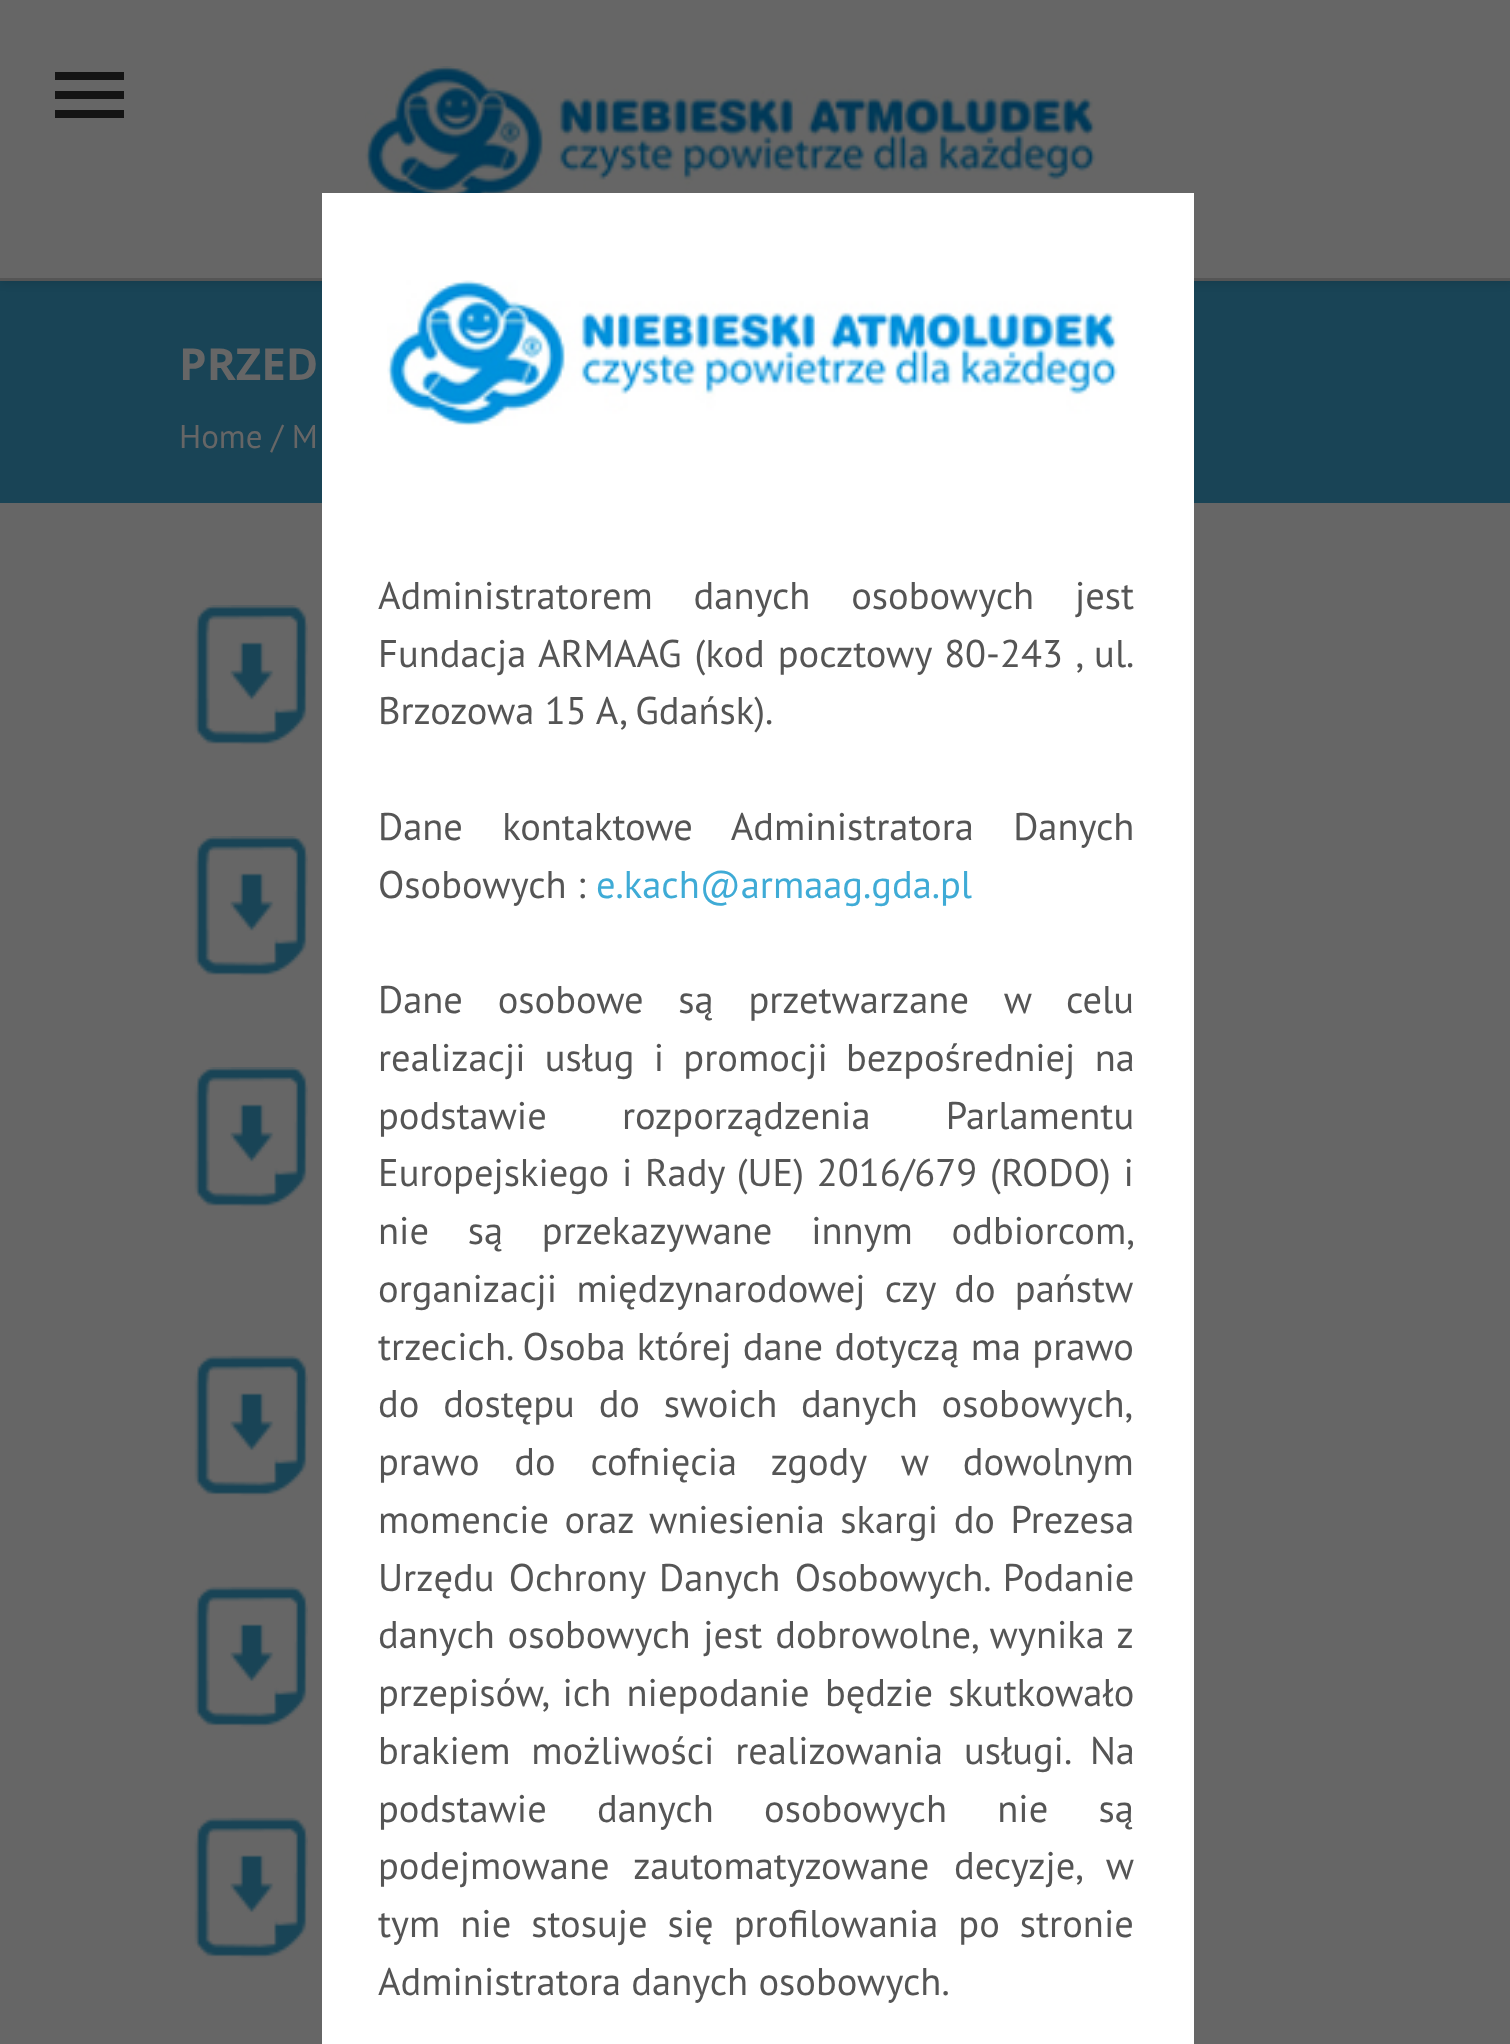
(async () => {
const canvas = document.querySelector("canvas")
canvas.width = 1510
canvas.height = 2044
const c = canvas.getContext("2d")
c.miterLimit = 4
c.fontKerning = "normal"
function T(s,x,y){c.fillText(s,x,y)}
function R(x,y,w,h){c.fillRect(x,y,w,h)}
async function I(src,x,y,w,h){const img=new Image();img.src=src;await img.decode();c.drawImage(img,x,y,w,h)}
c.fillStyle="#666"
R(0,0,1510,2044)
c.fillStyle="#194456"
R(0,281,1510,222)
c.fillStyle="#0000001f"
c.filter="blur(4px)"
c.beginPath()
c.rect(0,3,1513,280)
c.fill()
c.filter="none"
c.fillStyle="#666"
R(0,0,1510,278)
c.fillStyle="#555"
R(0,278,1510,3)
c.fillStyle="#141414"
R(55,72,69,8)
R(55,91,69,8)
R(55,110,69,8)
await I("1.png",365,66,731,127)
c.font="bold 44px Open Sans"
c.fillStyle="#666"
T("PRZED",179,380)
c.font="33px PT Sans"
T("Home / M",179,448)
await I("2.png",194,605,114,140)
await I("2.png",194,836,114,140)
await I("2.png",194,1067,114,140)
await I("3.png",194,1355,114,141)
await I("3.png",194,1586,114,141)
await I("3.png",194,1817,114,141)
c.fillStyle="#fff"
R(322,193,872,1851)
await I("4.png",387,280,731,146)
c.wordSpacing="30.5px"
c.font="38.5px PT Sans"
c.fillStyle="#555"
T("Administratorem danych osobowych jest",378,609)
c.wordSpacing="2.75px"
T("Fundacja ARMAAG (kod pocztowy 80-243 , ul.",378,667)
c.wordSpacing="0px"
T("Brzozowa 15 A, Gdańsk).",378,724)
c.wordSpacing="29px"
T("Dane kontaktowe Administratora Danych",378,840)
c.wordSpacing="0px"
T("Osobowych :",378,898)
c.fillStyle="#3fabd6"
T("e.kach@armaag.gda.pl",596,898)
c.wordSpacing="24.5px"
c.fillStyle="#555"
T("Dane osobowe są przetwarzane w celu",378,1013)
c.wordSpacing="9px"
T("realizacji usług i promocji",378,1071)
T("bezpośredniej na",846,1071)
c.wordSpacing="65px"
T("podstawie rozporządzenia Parlamentu",378,1129)
c.wordSpacing="2.5px"
T("Europejskiego i Rady (UE) 2016/679 (RODO) i",378,1186)
c.wordSpacing="28.5px"
T("nie są przekazywane innym odbiorcom,",378,1244)
c.wordSpacing="9px"
T("organizacji międzynarodowej czy do państw",378,1302)
c.wordSpacing="1px"
T("trzecich. Osoba której dane dotyczą ma prawo",378,1360)
c.wordSpacing="13.5px"
T("do dostępu do swoich danych osobowych,",378,1417)
c.wordSpacing="24.5px"
T("prawo do cofnięcia zgody w dowolnym",378,1475)
c.wordSpacing="5.25px"
T("momencie oraz wniesienia skargi do Prezesa",378,1533)
c.wordSpacing="4px"
T("Urzędu Ochrony Danych Osobowych. Podanie",378,1591)
c.wordSpacing="2.5px"
T("danych osobowych jest dobrowolne, wynika z",378,1648)
c.wordSpacing="5px"
T("przepisów, ich niepodanie będzie skutkowało",378,1706)
c.wordSpacing="10.5px"
T("brakiem możliwości realizowania usługi. Na",378,1764)
c.wordSpacing="40px"
T("podstawie danych osobowych nie są",378,1822)
c.wordSpacing="14.5px"
T("podejmowane zautomatyzowane decyzje, w",378,1879)
c.wordSpacing="9.75px"
T("tym nie stosuje się profilowania po stronie",378,1937)
c.wordSpacing="0px"
T("Administratora danych osobowych.",378,1995)
})()
